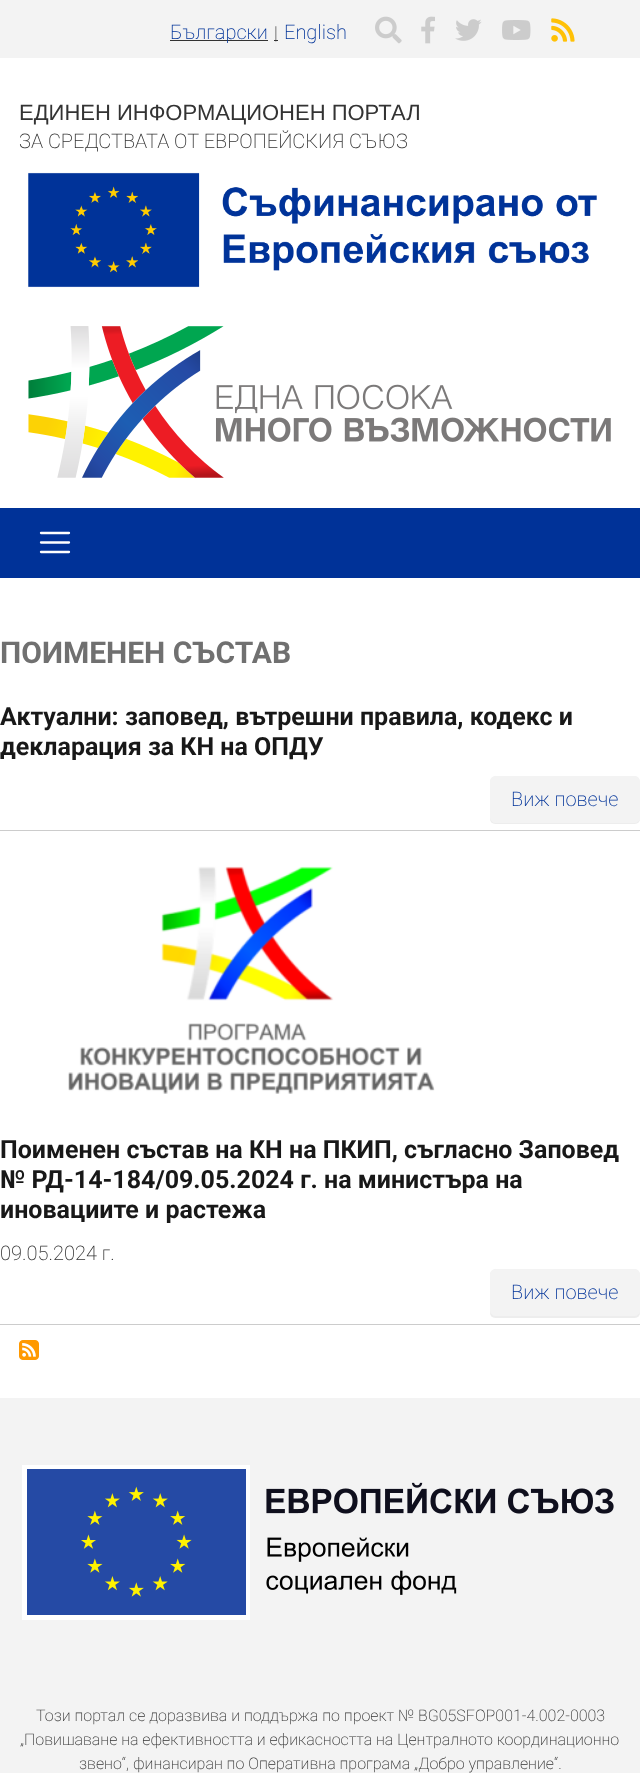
(async () => {
const canvas = document.querySelector("canvas")
canvas.width = 640
canvas.height = 1773
const c = canvas.getContext("2d")
c.miterLimit = 4
c.fontKerning = "normal"
function T(s,x,y){c.fillText(s,x,y)}
function R(x,y,w,h){c.fillRect(x,y,w,h)}
async function I(src,x,y,w,h){const img=new Image();img.src=src;await img.decode();c.drawImage(img,x,y,w,h)}
let path
c.fillStyle="#fff"
R(0,0,640,1773)
c.fillStyle="#f3f3f3"
R(0,0,640,58)
c.fillStyle="#333"
R(170,40,98,1)
c.font="200 20px Roboto"
c.fillStyle="#039"
T("Български",170,39)
c.fillStyle="#333"
R(274,40,4,1)
c.font="200 18px Roboto"
T("|",274,39)
c.font="200 20px Roboto"
c.fillStyle="#039"
T("English",284,39)
await I("1.png",375,16,27,28)
await I("2.png",421,16,14,28)
await I("3.png",455,19,27,22)
await I("4.png",502,20,29,20)
await I("5.png",551,18,24,24)
c.font="22px Liberation Sans"
c.fillStyle="#333"
T("ЕДИНЕН ИНФОРМАЦИОНЕН ПОРТАЛ",19,120)
c.font="200 20px Roboto"
T("ЗА СРЕДСТВАТА ОТ ЕВРОПЕЙСКИЯ СЪЮЗ",19,148)
await I("6.png",28,172,569,116)
await I("7.png",28,326,583,152)
c.fillStyle="#003298"
R(0,508,640,70)
path = new Path2D("M41 533h28m-28 9.5h28m-28 9.5h28")
c.strokeStyle="#fff"
c.lineWidth=2.3
c.lineCap="round"
c.stroke(path)
c.font="bold 30px Roboto"
c.fillStyle="#707070"
T("ПОИМЕНЕН СЪСТАВ",0,663)
c.fillStyle="#ccc"
R(0,830,640,1)
c.font="bold 25px Roboto"
c.fillStyle="#181818"
T("Актуални: заповед, вътрешни правила, кодекс и",0,725)
T("декларация за КН на ОПДУ",0,755)
c.fillStyle="#00000012"
c.filter="blur(0.5px)"
c.beginPath()
c.roundRect(490,778,150,46,5)
c.fill()
c.filter="none"
c.fillStyle="#f3f3f3"
c.beginPath()
c.roundRect(490.5,776.5,149,46,4.5)
c.fill()
c.strokeStyle="#f3f3f3"
c.lineWidth=1
c.stroke()
c.font="200 20px Roboto"
c.fillStyle="#039"
T("Виж повече",511,806)
c.fillStyle="#ccc"
R(0,1324,640,1)
await I("8.png",68,866,367,228)
c.font="bold 25px Roboto"
c.fillStyle="#181818"
T("Поименен състав на КН на ПКИП, съгласно Заповед",0,1158)
T("№ РД-14-184/09.05.2024 г. на министъра на",0,1188)
T("иновациите и растежа",0,1218)
c.font="200 20px Roboto"
c.fillStyle="#333"
T("09.05.2024 г.",0,1260)
c.fillStyle="#00000012"
c.filter="blur(0.5px)"
c.beginPath()
c.roundRect(490,1270,150,48,5)
c.fill()
c.filter="none"
c.fillStyle="#f3f3f3"
c.beginPath()
c.roundRect(490.5,1269.5,149,46,4.5)
c.fill()
c.stroke()
c.fillStyle="#039"
T("Виж повече",511,1299)
await I("9.png",19,1340,20,20)
c.fillStyle="#f3f3f3"
R(0,1398,640,375)
await I("10.png",22,1465,592,155)
c.font="200 16px Roboto"
c.fillStyle="#333"
T("Този портал се доразвива и поддържа по проект № BG05SFOP001-4.002-0003",36,1721)
T("„Повишаване на ефективността и ефикасността на Централното координационно",20,1745)
T("звено“, финансиран по Оперативна програма „Добро управление“.",79,1769)
})()
